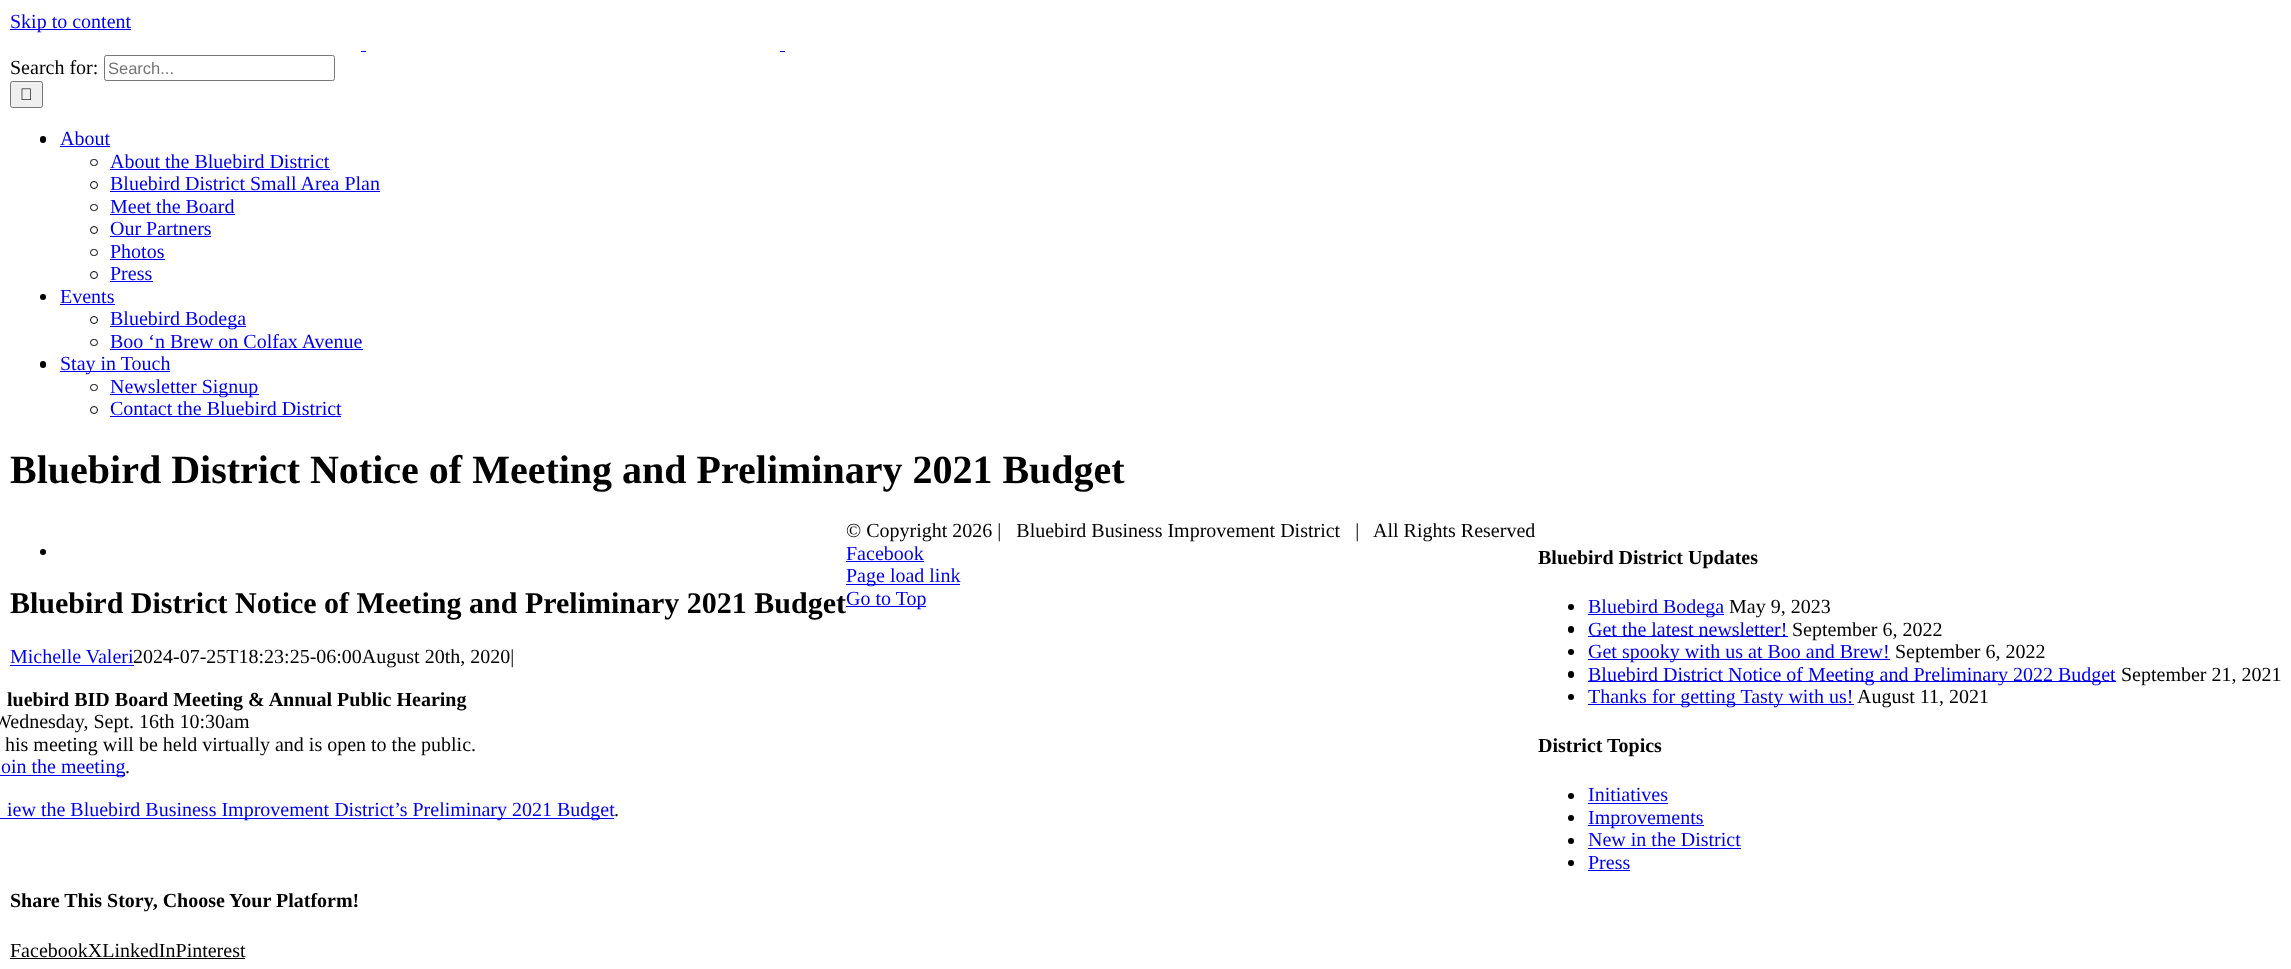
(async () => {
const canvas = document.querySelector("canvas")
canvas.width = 2291
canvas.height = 969
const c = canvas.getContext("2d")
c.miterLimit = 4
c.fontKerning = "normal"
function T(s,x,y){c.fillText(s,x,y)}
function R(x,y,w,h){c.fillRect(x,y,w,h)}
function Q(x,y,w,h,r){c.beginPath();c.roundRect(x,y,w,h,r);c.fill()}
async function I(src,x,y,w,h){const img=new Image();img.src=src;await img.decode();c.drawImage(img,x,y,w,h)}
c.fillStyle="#fff"
R(0,0,2291,969)
c.fillStyle="#00e"
R(10,29,121,1)
c.font="20px Liberation Serif"
T("Skip to content",10,28)
R(361,51,5,1)
R(780,51,5,1)
c.fillStyle="#000"
T("Search for:",10,74)
c.beginPath()
c.roundRect(104.5,55.5,230,25,2)
c.strokeStyle="#767676"
c.stroke()
c.font="16.5px Liberation Sans"
c.fillStyle="#757575"
T("Search...",108,74)
c.fillStyle="#efefef"
c.beginPath()
c.roundRect(10.5,81.5,32,26,2)
c.fill()
c.stroke()
await I("1.png",21,88,10,12)
c.fillStyle="#000"
Q(40,136,6,7,3)
c.font="20px Liberation Serif"
c.fillStyle="#00e"
T("About",60,145)
R(60,146,50,1)
c.beginPath()
c.roundRect(90.5,159.5,7,6,3)
c.strokeStyle="#000"
c.stroke()
T("About the Bluebird District",110,168)
R(110,169,220,1)
c.beginPath()
c.arc(94,185,3.5,0,7)
c.stroke()
T("Bluebird District Small Area Plan",110,190)
R(110,191,270,1)
c.beginPath()
c.roundRect(90.5,204.5,7,6,3)
c.stroke()
T("Meet the Board",110,213)
R(110,214,125,1)
c.beginPath()
c.arc(94,230,3.5,0,7)
c.stroke()
T("Our Partners",110,235)
R(110,236,101,1)
c.beginPath()
c.roundRect(90.5,249.5,7,6,3)
c.stroke()
T("Photos",110,258)
R(110,259,55,1)
c.beginPath()
c.arc(94,275,3.5,0,7)
c.stroke()
T("Press",110,280)
R(110,281,43,1)
c.fillStyle="#000"
c.beginPath()
c.arc(43,297,3,0,7)
c.fill()
c.fillStyle="#00e"
T("Events",60,303)
R(60,304,55,1)
c.beginPath()
c.arc(94,320,3.5,0,7)
c.stroke()
R(110,326,136,1)
T("Bluebird Bodega",110,325)
c.beginPath()
c.roundRect(90.5,339.5,7,6,3)
c.stroke()
T("Boo ‘n Brew on Colfax Avenue",110,348)
R(110,349,253,1)
c.fillStyle="#000"
Q(40,361,6,7,3)
c.fillStyle="#00e"
R(60,371,110,1)
T("Stay in Touch",60,370)
c.beginPath()
c.roundRect(90.5,384.5,7,6,3)
c.stroke()
R(110,394,149,1)
T("Newsletter Signup",110,393)
c.beginPath()
c.arc(94,410,3.5,0,7)
c.stroke()
T("Contact the Bluebird District",110,415)
R(110,416,231,1)
c.font="bold 40px Liberation Serif"
c.fillStyle="#000"
T("Bluebird District Notice of Meeting and Preliminary 2021 Budget",10,483)
c.font="20px Liberation Serif"
T("© Copyright 2026 |   Bluebird Business Improvement District   |   All Rights Reserved",846,537)
c.fillStyle="#00e"
T("Facebook",846,560)
R(846,561,78,1)
c.fillStyle="#000"
c.beginPath()
c.arc(43,552,3,0,7)
c.fill()
c.font="bold 30px Liberation Serif"
T("Bluebird District Notice of Meeting and Preliminary 2021 Budget",10,613)
c.font="20px Liberation Serif"
c.fillStyle="#00e"
T("Michelle Valeri",10,663)
R(10,665,124,1)
c.fillStyle="#000"
T("2024-07-25T18:23:25-06:00August 20th, 2020|",133,663)
c.font="bold 20px Liberation Serif"
T("luebird BID Board Meeting & Annual Public Hearing",7,706)
c.font="20px Liberation Serif"
T("Wednesday, Sept. 16th 10:30am",-7,728)
T("his meeting will be held virtually and is open to the public.",5,751)
c.fillStyle="#00e"
R(0,775,125,1)
T("oin the meeting",1,773)
c.fillStyle="#000"
T(".",125,773)
c.fillStyle="#00e"
R(0,818,614,1)
T("iew the Bluebird Business Improvement District’s Preliminary 2021 Budget",7,816)
c.fillStyle="#000"
T(".",614,816)
c.font="bold 20px Liberation Serif"
T("Share This Story, Choose Your Platform!",10,907)
c.font="20px Liberation Serif"
T("FacebookXLinkedInPinterest",10,957)
R(10,958,235,1)
c.font="bold 20px Liberation Serif"
T("Bluebird District Updates",1538,564)
c.beginPath()
c.arc(1571,607,3,0,7)
c.fill()
c.fillStyle="#00e"
R(1588,614,136,1)
c.font="20px Liberation Serif"
T("Bluebird Bodega",1588,613)
c.fillStyle="#000"
T("May 9, 2023",1729,613)
Q(1568,626,6,7,3)
c.fillStyle="#00e"
R(1588,636,200,1)
T("Get the latest newsletter!",1588,636)
c.fillStyle="#000"
T("September 6, 2022",1792,636)
c.beginPath()
c.arc(1571,652,3,0,7)
c.fill()
c.fillStyle="#00e"
R(1588,659,302,1)
T("Get spooky with us at Boo and Brew!",1588,658)
c.fillStyle="#000"
T("September 6, 2022",1895,658)
Q(1568,671,6,7,3)
c.fillStyle="#00e"
R(1588,681,528,1)
T("Bluebird District Notice of Meeting and Preliminary 2022 Budget",1588,681)
c.fillStyle="#000"
T("September 21, 2021",2121,681)
c.beginPath()
c.arc(1571,697,3,0,7)
c.fill()
c.fillStyle="#00e"
R(1588,704,266,1)
T("Thanks for getting Tasty with us!",1588,703)
c.fillStyle="#000"
T("August 11, 2021",1857,703)
c.font="bold 20px Liberation Serif"
T("District Topics",1538,752)
c.beginPath()
c.arc(1571,796,3,0,7)
c.fill()
c.font="20px Liberation Serif"
c.fillStyle="#00e"
T("Initiatives",1588,801)
R(1588,803,80,1)
c.fillStyle="#000"
c.beginPath()
c.arc(1571,818,3,0,7)
c.fill()
c.fillStyle="#00e"
R(1588,825,116,1)
T("Improvements",1588,824)
c.fillStyle="#000"
c.beginPath()
c.arc(1571,841,3,0,7)
c.fill()
c.fillStyle="#00e"
T("New in the District",1588,846)
R(1588,848,153,1)
c.fillStyle="#000"
c.beginPath()
c.arc(1571,863,3,0,7)
c.fill()
c.fillStyle="#00e"
T("Press",1588,869)
R(1588,870,42,1)
R(846,584,114,1)
T("Page load link",846,582)
R(846,606,80,1)
T("Go to Top",846,605)
})()
